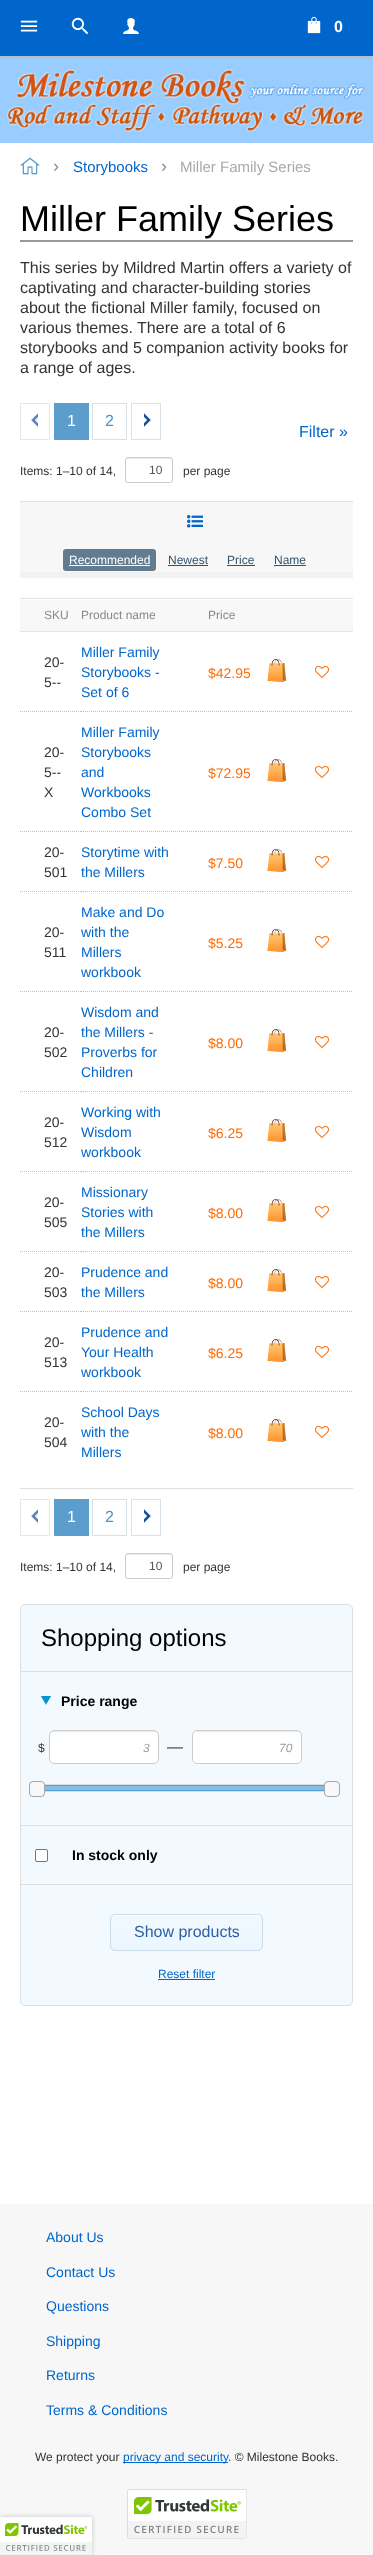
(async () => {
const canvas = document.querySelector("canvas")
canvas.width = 373
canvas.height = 2555
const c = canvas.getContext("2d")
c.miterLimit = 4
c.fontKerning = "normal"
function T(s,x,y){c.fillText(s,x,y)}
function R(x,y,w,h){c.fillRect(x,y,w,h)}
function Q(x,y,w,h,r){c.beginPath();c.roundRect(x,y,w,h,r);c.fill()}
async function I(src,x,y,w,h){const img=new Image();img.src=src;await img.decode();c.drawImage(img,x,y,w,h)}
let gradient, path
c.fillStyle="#fff"
R(0,0,373,2555)
c.fillStyle="#9cf"
R(0,56,373,87)
c.fillStyle="#bababa"
c.filter="blur(1.5px)"
c.beginPath()
c.rect(0,1,373,56)
c.fill()
c.filter="none"
c.fillStyle="#06c"
R(0,0,373,56)
await I("1.png",20,20,18,12)
await I("2.png",71,17,18,18)
await I("3.png",123,18,16,16)
await I("4.png",307,16,14,18)
c.font="bold 16px Liberation Sans"
c.fillStyle="#fff"
T("0",334,32)
await I("5.png",7,69,358,63)
await I("6.png",20,157,20,18)
c.font="18px Liberation Sans"
c.fillStyle="#888"
T("›",53,172)
c.font="15px Liberation Sans"
c.fillStyle="#06c"
T("Storybooks",73,172)
c.font="18px Liberation Sans"
c.fillStyle="#888"
T("›",161,172)
c.font="15px Liberation Sans"
c.fillStyle="#a9a9a9"
T("Miller Family Series",180,172)
c.fillStyle="#999"
R(20,240,333,2)
c.font="36px Liberation Sans"
c.fillStyle="#000"
T("Miller Family Series",20,231)
c.font="16px Liberation Sans"
c.fillStyle="#333"
T("This series by Mildred Martin offers a variety of",20,273)
T("captivating and character-building stories",20,293)
T("about the fictional Miller family, focused on",20,313)
T("various themes. There are a total of 6",20,333)
T("storybooks and 5 companion activity books for",20,353)
T("a range of ages.",20,373)
await I("7.png",31,413,7,15)
c.strokeStyle="#e7e7e7"
c.strokeRect(20.5,403.5,29,36)
c.fillStyle="#5b9ece"
R(54,403,35,37)
c.fillStyle="#fff"
T("1",67,426)
c.strokeStyle="#d7e1e8"
c.strokeRect(92.5,403.5,34,36)
c.fillStyle="#5194c5"
T("2",105,426)
await I("8.png",144,413,7,14)
c.strokeRect(131.5,403.5,29,36)
c.font="12px Liberation Sans"
c.fillStyle="#333"
T("Items: 1–10 of 14,",20,475)
c.fillStyle="#ececec"
path = new Path2D("M128 459h42c1 0 2 1 2 2c0-5-5-3-9-3h-28c-4 0-9-2-9 3c0-1 1-2 2-2z")
c.fill(path)
c.beginPath()
c.roundRect(125.5,457.5,47,25,2.5)
c.strokeStyle="#ccc"
c.stroke()
c.fillStyle="#555"
T("10",149,474)
c.fillStyle="#333"
T("per page",183,475)
c.fillStyle="#f7f7f7"
R(20,502,333,70)
c.fillStyle="#f2f2f2"
R(20,572,333,6)
c.fillStyle="#dfdfdf"
R(20,501,333,1)
c.font="16px Liberation Sans"
c.fillStyle="#06c"
T("Filter »",299,437)
await I("9.png",187,515,16,13)
c.fillStyle="#637b8e"
Q(63,549,93,22,3)
c.font="12px Liberation Sans"
c.fillStyle="#fff"
T("Recommended",69,564)
R(69,565,81,1)
c.fillStyle="#32546e"
T("Newest",168,564)
R(168,565,40,1)
T("Price",227,564)
R(227,565,28,1)
T("Name",274,564)
R(274,565,32,1)
c.fillStyle="#f8f8f8"
R(20,600,333,31)
c.fillStyle="#e4e4e4"
R(20,598,333,1)
R(20,631,333,1)
c.fillStyle="#888"
T("SKU",44,619)
T("Product name",81,619)
T("Price",208,619)
c.font="14px Liberation Sans"
c.fillStyle="#333"
T("20-",44,667)
T("5--",44,687)
path = new Path2D("M81 711.5h100")
c.strokeStyle="#c2c2c2"
c.setLineDash([1,1])
c.stroke(path)
c.fillStyle="#06c"
T("Miller Family",81,657)
T("Storybooks -",81,677)
T("Set of 6",81,697)
path = new Path2D("M208 711.5h55")
c.stroke(path)
c.fillStyle="#ff6c00"
T("$42.95",208,678)
path = new Path2D("M263 711.5h52")
c.stroke(path)
await I("10.png",267,659,19,24)
path = new Path2D("M315 711.5h26m0 0h12")
c.stroke(path)
await I("11.png",315,666,14,12)
path = new Path2D("M20 711.5h24m0 0h37")
c.stroke(path)
path = new Path2D("M181 711.5h15m0 0h12")
c.stroke(path)
c.fillStyle="#333"
T("20-",44,757)
T("5--",44,777)
T("X",44,797)
path = new Path2D("M81 831.5h100")
c.stroke(path)
c.fillStyle="#06c"
T("Miller Family",81,737)
T("Storybooks",81,757)
T("and",81,777)
T("Workbooks",81,797)
T("Combo Set",81,817)
path = new Path2D("M208 831.5h55")
c.stroke(path)
c.fillStyle="#ff6c00"
T("$72.95",208,778)
path = new Path2D("M263 831.5h52")
c.stroke(path)
await I("10.png",267,759,19,24)
path = new Path2D("M315 831.5h26m0 0h12")
c.stroke(path)
await I("11.png",315,766,14,12)
path = new Path2D("M20 831.5h24m0 0h37")
c.stroke(path)
path = new Path2D("M181 831.5h15m0 0h12")
c.stroke(path)
c.fillStyle="#333"
T("20-",44,857)
T("501",44,877)
path = new Path2D("M81 891.5h100")
c.stroke(path)
c.fillStyle="#06c"
T("Storytime with",81,857)
T("the Millers",81,877)
path = new Path2D("M208 891.5h55")
c.stroke(path)
c.fillStyle="#ff6c00"
T("$7.50",208,868)
path = new Path2D("M263 891.5h52")
c.stroke(path)
await I("10.png",267,849,19,24)
path = new Path2D("M315 891.5h26m0 0h12")
c.stroke(path)
await I("11.png",315,856,14,12)
path = new Path2D("M20 891.5h24m0 0h37")
c.stroke(path)
path = new Path2D("M181 891.5h15m0 0h12")
c.stroke(path)
c.fillStyle="#333"
T("20-",44,937)
T("511",44,957)
path = new Path2D("M81 991.5h100")
c.stroke(path)
c.fillStyle="#06c"
T("Make and Do",81,917)
T("with the",81,937)
T("Millers",81,957)
T("workbook",81,977)
path = new Path2D("M208 991.5h55")
c.stroke(path)
c.fillStyle="#ff6c00"
T("$5.25",208,948)
path = new Path2D("M263 991.5h52")
c.stroke(path)
await I("10.png",267,929,19,24)
path = new Path2D("M315 991.5h26m0 0h12")
c.stroke(path)
await I("11.png",315,936,14,12)
path = new Path2D("M20 991.5h24m0 0h37")
c.stroke(path)
path = new Path2D("M181 991.5h15m0 0h12")
c.stroke(path)
c.fillStyle="#333"
T("20-",44,1037)
T("502",44,1057)
path = new Path2D("M81 1091.5h100")
c.stroke(path)
c.fillStyle="#06c"
T("Wisdom and",81,1017)
T("the Millers -",81,1037)
T("Proverbs for",81,1057)
T("Children",81,1077)
path = new Path2D("M208 1091.5h55")
c.stroke(path)
c.fillStyle="#ff6c00"
T("$8.00",208,1048)
path = new Path2D("M263 1091.5h52")
c.stroke(path)
await I("10.png",267,1029,19,24)
path = new Path2D("M315 1091.5h26m0 0h12")
c.stroke(path)
await I("11.png",315,1036,14,12)
path = new Path2D("M20 1091.5h24m0 0h37")
c.stroke(path)
path = new Path2D("M181 1091.5h15m0 0h12")
c.stroke(path)
c.fillStyle="#333"
T("20-",44,1127)
T("512",44,1147)
path = new Path2D("M81 1171.5h100")
c.stroke(path)
c.fillStyle="#06c"
T("Working with",81,1117)
T("Wisdom",81,1137)
T("workbook",81,1157)
path = new Path2D("M208 1171.5h55")
c.stroke(path)
c.fillStyle="#ff6c00"
T("$6.25",208,1138)
path = new Path2D("M263 1171.5h52")
c.stroke(path)
await I("10.png",267,1119,19,24)
path = new Path2D("M315 1171.5h26m0 0h12")
c.stroke(path)
await I("11.png",315,1126,14,12)
path = new Path2D("M20 1171.5h24m0 0h37")
c.stroke(path)
path = new Path2D("M181 1171.5h15m0 0h12")
c.stroke(path)
c.fillStyle="#333"
T("20-",44,1207)
T("505",44,1227)
path = new Path2D("M81 1251.5h100")
c.stroke(path)
c.fillStyle="#06c"
T("Missionary",81,1197)
T("Stories with",81,1217)
T("the Millers",81,1237)
path = new Path2D("M208 1251.5h55")
c.stroke(path)
c.fillStyle="#ff6c00"
T("$8.00",208,1218)
path = new Path2D("M263 1251.5h52")
c.stroke(path)
await I("10.png",267,1199,19,24)
path = new Path2D("M315 1251.5h26m0 0h12")
c.stroke(path)
await I("11.png",315,1206,14,12)
path = new Path2D("M20 1251.5h24m0 0h37")
c.stroke(path)
path = new Path2D("M181 1251.5h15m0 0h12")
c.stroke(path)
c.fillStyle="#333"
T("20-",44,1277)
T("503",44,1297)
path = new Path2D("M81 1311.5h100")
c.stroke(path)
c.fillStyle="#06c"
T("Prudence and",81,1277)
T("the Millers",81,1297)
path = new Path2D("M208 1311.5h55")
c.stroke(path)
c.fillStyle="#ff6c00"
T("$8.00",208,1288)
path = new Path2D("M263 1311.5h52")
c.stroke(path)
await I("10.png",267,1269,19,24)
path = new Path2D("M315 1311.5h26m0 0h12")
c.stroke(path)
await I("11.png",315,1276,14,12)
path = new Path2D("M20 1311.5h24m0 0h37")
c.stroke(path)
path = new Path2D("M181 1311.5h15m0 0h12")
c.stroke(path)
c.fillStyle="#333"
T("20-",44,1347)
T("513",44,1367)
path = new Path2D("M81 1391.5h100")
c.stroke(path)
c.fillStyle="#06c"
T("Prudence and",81,1337)
T("Your Health",81,1357)
T("workbook",81,1377)
path = new Path2D("M208 1391.5h55")
c.stroke(path)
c.fillStyle="#ff6c00"
T("$6.25",208,1358)
path = new Path2D("M263 1391.5h52")
c.stroke(path)
await I("10.png",267,1339,19,24)
path = new Path2D("M315 1391.5h26m0 0h12")
c.stroke(path)
await I("11.png",315,1346,14,12)
path = new Path2D("M20 1391.5h24m0 0h37")
c.stroke(path)
path = new Path2D("M181 1391.5h15m0 0h12")
c.stroke(path)
c.fillStyle="#333"
T("20-",44,1427)
T("504",44,1447)
c.fillStyle="#06c"
T("School Days",81,1417)
T("with the",81,1437)
T("Millers",81,1457)
c.fillStyle="#ff6c00"
T("$8.00",208,1438)
await I("10.png",267,1419,19,24)
await I("11.png",315,1426,14,12)
c.fillStyle="#dfdfdf"
R(20,1488,333,1)
await I("7.png",31,1509,7,15)
c.strokeStyle="#e7e7e7"
c.setLineDash([])
c.strokeRect(20.5,1499.5,29,36)
c.fillStyle="#5b9ece"
R(54,1499,35,37)
c.font="16px Liberation Sans"
c.fillStyle="#fff"
T("1",67,1522)
c.strokeStyle="#d7e1e8"
c.strokeRect(92.5,1499.5,34,36)
c.fillStyle="#5194c5"
T("2",105,1522)
await I("8.png",144,1509,7,14)
c.strokeRect(131.5,1499.5,29,36)
c.font="12px Liberation Sans"
c.fillStyle="#333"
T("Items: 1–10 of 14,",20,1571)
c.fillStyle="#ececec"
path = new Path2D("M128 1555h42c1 0 2 1 2 2c0-5-5-3-9-3h-28c-4 0-9-2-9 3c0-1 1-2 2-2z")
c.fill(path)
c.beginPath()
c.roundRect(125.5,1553.5,47,25,2.5)
c.strokeStyle="#ccc"
c.stroke()
c.fillStyle="#555"
T("10",149,1570)
c.fillStyle="#333"
T("per page",183,1571)
c.fillStyle="#f2f9ff"
c.beginPath()
c.roundRect(20.5,1604.5,332,401,4.5)
c.fill()
c.strokeStyle="#dfdfdf"
c.stroke()
c.font="24px Liberation Sans"
c.fillStyle="#000"
T("Shopping options",41,1646)
c.fillStyle="#dfdfdf"
R(21,1671,331,1)
await I("12.png",41,1696,10,9)
c.font="bold 14px Liberation Sans"
c.fillStyle="#000"
T("Price range",61,1706)
c.font="12px Liberation Sans"
c.fillStyle="#333"
T("$",38,1752)
c.fillStyle="#fff"
Q(49,1730,110,34,5)
c.fillStyle="#ececec"
path = new Path2D("M54 1732h100c2 0 4 2 4 4c0-9-17-5-21-5h-66c-4 0-21-4-21 5c0-2 2-4 4-4z")
c.fill(path)
c.beginPath()
c.roundRect(49.5,1730.5,109,33,4.5)
c.strokeStyle="#ccc"
c.stroke()
c.font="italic 12px Liberation Sans"
c.fillStyle="#999"
T("3",143,1752)
c.font="16px Liberation Sans"
c.fillStyle="#333"
T("—",167,1752)
c.fillStyle="#fff"
Q(192,1730,110,34,5)
c.fillStyle="#ececec"
path = new Path2D("M197 1732h100c2 0 4 2 4 4c0-9-17-5-21-5h-66c-4 0-21-4-21 5c0-2 2-4 4-4z")
c.fill(path)
c.beginPath()
c.roundRect(192.5,1730.5,109,33,4.5)
c.stroke()
c.font="italic 12px Liberation Sans"
c.fillStyle="#999"
T("70",279,1752)
c.strokeStyle="#dfdfdf"
c.strokeRect(38.5,1784.5,296,7)
c.fillStyle="#87bee8"
R(39,1786,285,4)
c.strokeStyle="#51a2d6"
c.strokeRect(39.5,1785.5,294,5)
c.fillStyle="#f8f8f8"
c.beginPath()
c.roundRect(29.5,1781.5,15,15,3.5)
c.fill()
c.strokeStyle="#a6a6a6"
c.stroke()
c.beginPath()
c.roundRect(324.5,1781.5,15,15,3.5)
c.fill()
c.stroke()
c.fillStyle="#dfdfdf"
R(21,1825,331,1)
c.fillStyle="#fff"
c.beginPath()
c.roundRect(35.5,1849.5,12,12,1.5)
c.fill()
c.strokeStyle="#767676"
c.stroke()
c.font="bold 14px Liberation Sans"
c.fillStyle="#000"
T("In stock only",72,1860)
c.fillStyle="#dfdfdf"
R(21,1884,331,1)
c.save()
c.beginPath()
c.roundRect(110,1914,153,37,5)
c.clip()
gradient = c.createLinearGradient(187,1915,187,1950)
gradient.addColorStop(0,"#f1f9fe")
gradient.addColorStop(1,"#ebf6fe")
c.fillStyle = gradient
R(110,1915,153,35)
c.restore()
c.beginPath()
c.roundRect(110.5,1914.5,152,36,4.5)
c.strokeStyle="#cadce8"
c.stroke()
c.fillStyle="#fff"
R(114,1915,145,1)
c.font="16px Liberation Sans"
c.fillStyle="#2c5fa6"
T("Show products",134,1937)
c.font="12px Liberation Sans"
c.fillStyle="#06c"
T("Reset filter",158,1978)
R(158,1979,57,1)
c.fillStyle="#f7f7f7"
R(0,2204,373,351)
c.font="14px Liberation Sans"
c.fillStyle="#06c"
T("About Us",46,2242)
T("Contact Us",46,2277)
T("Questions",46,2311)
T("Shipping",46,2346)
T("Returns",46,2380)
T("Terms & Conditions",46,2415)
c.font="12px Liberation Sans"
c.fillStyle="#333"
T("We protect your",35,2461)
c.fillStyle="#06c"
R(123,2462,105,1)
T("privacy and security",123,2461)
c.fillStyle="#333"
T(". © Milestone Books.",228,2461)
await I("13.png",127,2489,120,50)
c.fillStyle="#00000033"
c.filter="blur(2.5px)"
c.beginPath()
c.roundRect(0,2517,92,38,2)
c.fill()
c.filter="none"
c.fillStyle="#fff"
c.beginPath()
c.roundRect(0,2517,92,38,[0,2,0,0])
c.fill()
await I("14.png",0,2517,92,38)
})()
